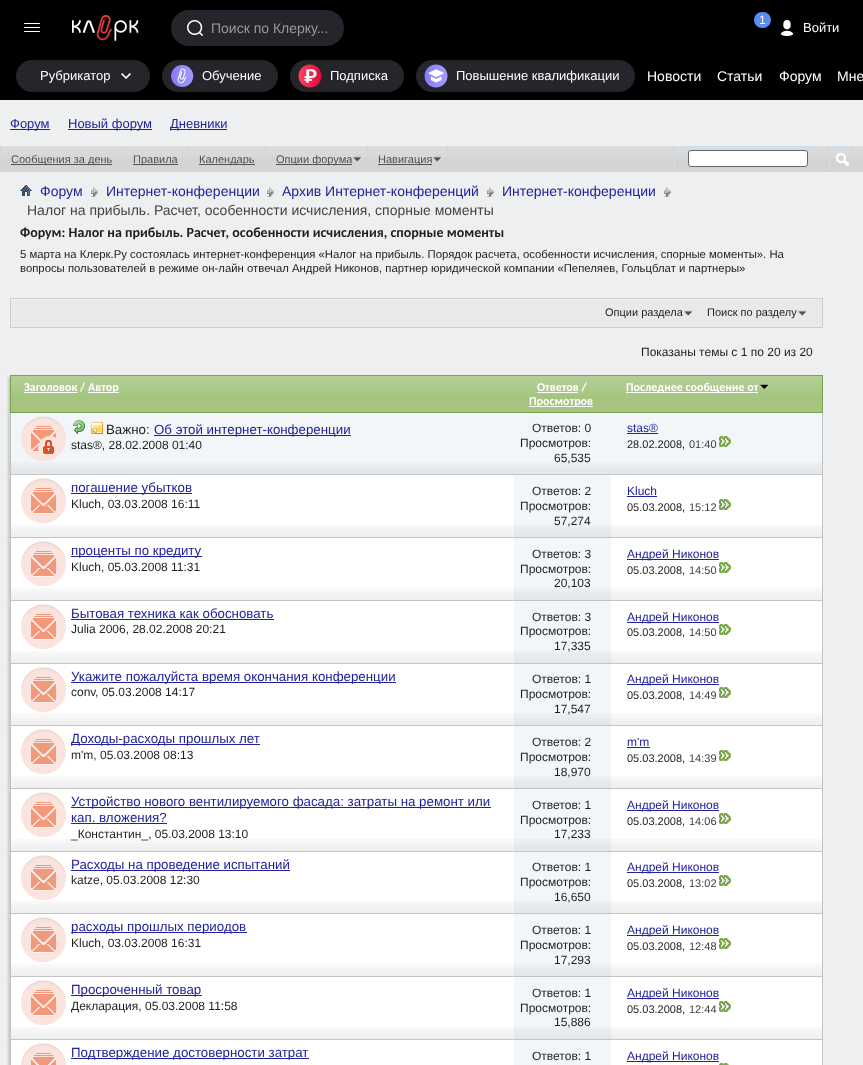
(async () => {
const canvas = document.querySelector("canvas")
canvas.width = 863
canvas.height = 1065
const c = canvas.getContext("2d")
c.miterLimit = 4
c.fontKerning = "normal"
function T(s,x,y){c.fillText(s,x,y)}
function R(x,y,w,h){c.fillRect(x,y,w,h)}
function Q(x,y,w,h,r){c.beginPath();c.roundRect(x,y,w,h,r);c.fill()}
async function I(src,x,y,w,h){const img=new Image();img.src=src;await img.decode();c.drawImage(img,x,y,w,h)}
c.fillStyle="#eeeff1"
R(0,0,863,1065)
c.fillStyle="#000"
R(0,0,863,100)
c.fillStyle="#fff"
Q(24,23,16,1,.5)
Q(24,27,16,1,.5)
Q(24,31,16,1,.5)
await I("1.png",72,15,67,26)
c.fillStyle="#26252c"
Q(171,10,173,36,18)
await I("2.png",187,20,16,16)
c.font="14px Liberation Sans"
c.fillStyle="#999"
T("Поиск по Клерку...",211,33)
c.fillStyle="#5a8cf1"
Q(754,12,17,16,8)
c.font="12px Liberation Sans"
c.fillStyle="#fff"
T("1",759,24)
await I("3.png",780,20,14,16)
c.font="13px Liberation Sans"
T("Войти",803,32)
c.fillStyle="#26252c"
Q(16,60,134,32,16)
c.fillStyle="#fff"
T("Рубрикатор",40,80)
await I("4.png",121,73,10,6)
c.fillStyle="#26252c"
Q(162,60,116,32,16)
await I("5.png",171,65,23,22)
c.fillStyle="#fff"
T("Обучение",202,80)
c.fillStyle="#26252c"
Q(290,60,114,32,16)
await I("6.png",298,64,24,24)
c.fillStyle="#fff"
T("Подписка",330,80)
c.fillStyle="#26252c"
Q(416,60,219,32,16)
await I("7.png",424,64,24,24)
c.fillStyle="#fff"
T("Повышение квалификации",456,80)
c.font="14px Liberation Sans"
T("Новости",647,81)
T("Статьи",717,81)
T("Форум",779,81)
T("Мне",837,81)
c.fillStyle="#22229c"
R(10,129,40,1)
c.font="13px Liberation Sans"
T("Форум",10,128)
R(68,129,84,1)
T("Новый форум",68,128)
R(170,129,57,1)
T("Дневники",170,128)
c.fillStyle="#d4d4d4"
R(0,146,863,26)
await I("8.png",1,146,862,12)
R(122,146,1,12)
c.fillStyle="#535353"
R(11,164,101,1)
c.font="11px Liberation Sans"
T("Сообщения за день",11,163)
c.fillStyle="#d4d4d4"
R(188,146,1,12)
c.fillStyle="#535353"
R(133,164,45,1)
T("Правила",133,163)
c.fillStyle="#d4d4d4"
R(265,146,1,12)
c.fillStyle="#535353"
R(199,164,56,1)
T("Календарь",199,163)
c.fillStyle="#d4d4d4"
R(367,146,1,12)
c.fillStyle="#535353"
R(276,164,76,1)
T("Опции форума",276,163)
await I("9.png",353,156,9,7)
c.fillStyle="#d4d4d4"
R(447,146,1,12)
c.fillStyle="#535353"
R(378,164,54,1)
T("Навигация",378,163)
await I("9.png",433,156,9,7)
c.fillStyle="#d4d4d4"
R(673,146,1,12)
c.fillStyle="#cedfeb"
R(674,146,147,1)
R(674,146,1,22)
c.fillStyle="#fff"
c.beginPath()
c.roundRect(688.5,150.5,119,16,2.5)
c.fill()
c.strokeStyle="#666"
c.stroke()
c.fillStyle="#d4d4d4"
R(852,146,1,12)
R(828,146,1,12)
c.fillStyle="#cedfeb"
R(829,146,23,1)
R(829,146,1,23)
await I("10.png",836,153,13,14)
await I("11.png",20,185,12,11)
await I("12.png",91,187,7,10)
c.font="14px Liberation Sans"
c.fillStyle="#22229c"
T("Форум",40,196)
await I("12.png",267,187,7,10)
T("Интернет-конференции",106,196)
await I("12.png",487,187,7,10)
T("Архив Интернет-конференций",282,196)
await I("12.png",664,187,7,10)
T("Интернет-конференции",502,196)
c.fillStyle="#444"
T("Налог на прибыль. Расчет, особенности исчисления, спорные моменты",27,215)
c.font="bold 14px Carlito"
c.fillStyle="#1e1e1e"
T("Форум: Налог на прибыль. Расчет, особенности исчисления, спорные моменты",20,237)
c.font="11.33px Liberation Sans"
T("5 марта на Клерк.Ру состоялась интернет-конференция «Налог на прибыль. Порядок расчета, особенности исчисления, спорные моменты». На",20,258)
T("вопросы пользователей в режиме он-лайн отвечал Андрей Никонов, партнер юридической компании «Пепеляев, Гольцблат и партнеры»",20,272)
c.fillStyle="#e9e9e9"
R(11,300,811,27)
c.fillStyle="#ededed"
R(10,299,813,1)
c.strokeStyle="#cecece"
c.strokeRect(10.5,298.5,812,29)
await I("13.png",684,310,9,7)
c.font="11px Liberation Sans"
c.fillStyle="#1e1e1e"
T("Опции раздела",605,316)
await I("13.png",798,310,9,7)
T("Поиск по разделу",707,316)
c.font="12px Liberation Sans"
T("Показаны темы с 1 по 20 из 20",641,356)
c.fillStyle="#c8c8c8"
c.filter="blur(1px)"
c.beginPath()
c.rect(8,377,813,38)
c.fill()
c.filter="none"
c.fillStyle="#a4c47f"
R(11,376,811,36)
await I("14.png",11,376,811,20)
c.strokeStyle="#79a44d"
c.strokeRect(10.5,375.5,812,37)
c.font="bold 12px Carlito"
c.fillStyle="#fff"
T("Заголовок /",24,391)
R(24,392,53,1)
R(88,392,31,1)
T("Автор",88,391)
T("Ответов /",537,391)
R(537,392,41,1)
R(529,406,64,1)
T("Просмотров",529,405)
R(626,392,132,1)
T("Последнее сообщение от",626,391)
await I("15.png",760,384,9,5)
c.fillStyle="#c8c8c8"
c.filter="blur(1px)"
c.beginPath()
c.rect(8,415,813,62)
c.fill()
c.filter="none"
c.fillStyle="#f2f6f8"
R(11,413,811,61)
await I("16.png",11,462,811,12)
c.fillStyle="#c4c4c4"
R(822,413,1,62)
R(10,474,813,1)
R(10,413,1,62)
await I("17.png",21,416,45,46)
await I("18.png",73,420,12,14)
await I("19.png",91,422,12,12)
c.font="13.3px Liberation Sans"
c.fillStyle="#1e1e1e"
T("Важно:",106,434)
c.fillStyle="#22229c"
R(154,435,197,1)
T("Об этой интернет-конференции",154,434)
c.font="12px Liberation Sans"
c.fillStyle="#1e1e1e"
T("stas®, 28.02.2008 01:40",71,449)
c.fillStyle="#f2f6f8"
R(514,462,97,12)
await I("20.png",514,462,97,12)
c.fillStyle="#1e1e1e"
T("Ответов: 0",532,432)
T("Просмотров:",520,447)
T("65,535",554,462)
c.fillStyle="#22229c"
T("stas®",627,432)
R(627,433,31,1)
c.font="11px Liberation Sans"
c.fillStyle="#1e1e1e"
T("28.02.2008,",627,448)
c.fillStyle="#3e3e3e"
T("01:40",689,448)
await I("21.png",719,436,12,11)
c.fillStyle="#c8c8c8"
c.filter="blur(1px)"
c.beginPath()
c.rect(8,477,813,63)
c.fill()
c.filter="none"
c.fillStyle="#fff"
R(11,475,811,62)
await I("22.png",11,525,811,12)
c.fillStyle="#c4c4c4"
R(822,475,1,63)
R(10,537,813,1)
R(10,475,1,63)
await I("23.png",21,478,45,46)
c.fillStyle="#22229c"
R(71,493,121,1)
c.font="13.3px Liberation Sans"
T("погашение убытков",71,492)
c.font="12px Liberation Sans"
c.fillStyle="#1e1e1e"
T("Kluch, 03.03.2008 16:11",71,508)
c.fillStyle="#f2f6f8"
R(514,475,97,62)
await I("20.png",514,525,97,12)
c.fillStyle="#1e1e1e"
T("Ответов: 2",532,495)
T("Просмотров:",520,510)
T("57,274",554,525)
c.fillStyle="#22229c"
T("Kluch",627,495)
R(627,496,30,1)
c.font="11px Liberation Sans"
c.fillStyle="#1e1e1e"
T("05.03.2008,",627,511)
c.fillStyle="#3e3e3e"
T("15:12",689,511)
await I("24.png",719,499,12,11)
c.fillStyle="#c8c8c8"
c.filter="blur(1px)"
c.beginPath()
c.rect(8,540,813,63)
c.fill()
c.filter="none"
c.fillStyle="#fff"
R(11,538,811,62)
await I("22.png",11,588,811,12)
c.fillStyle="#c4c4c4"
R(822,538,1,63)
R(10,600,813,1)
R(10,538,1,63)
await I("23.png",21,541,45,46)
c.fillStyle="#22229c"
R(71,556,131,1)
c.font="13.3px Liberation Sans"
T("проценты по кредиту",71,555)
c.font="12px Liberation Sans"
c.fillStyle="#1e1e1e"
T("Kluch, 05.03.2008 11:31",71,571)
c.fillStyle="#f2f6f8"
R(514,538,97,62)
await I("20.png",514,588,97,12)
c.fillStyle="#1e1e1e"
T("Ответов: 3",532,558)
T("Просмотров:",520,573)
T("20,103",554,587)
c.fillStyle="#22229c"
R(627,559,92,1)
T("Андрей Никонов",627,558)
c.font="11px Liberation Sans"
c.fillStyle="#1e1e1e"
T("05.03.2008,",627,574)
c.fillStyle="#3e3e3e"
T("14:50",689,574)
await I("24.png",719,562,12,11)
c.fillStyle="#c8c8c8"
c.filter="blur(1px)"
c.beginPath()
c.rect(8,603,813,63)
c.fill()
c.filter="none"
c.fillStyle="#fff"
R(11,601,811,62)
await I("22.png",11,651,811,12)
c.fillStyle="#c4c4c4"
R(822,601,1,63)
R(10,663,813,1)
R(10,601,1,63)
await I("23.png",21,604,45,46)
c.font="13.3px Liberation Sans"
c.fillStyle="#22229c"
T("Бытовая техника как обосновать",71,618)
R(71,619,203,1)
c.font="12px Liberation Sans"
c.fillStyle="#1e1e1e"
T("Julia 2006, 28.02.2008 20:21",71,633)
c.fillStyle="#f2f6f8"
R(514,601,97,62)
await I("20.png",514,651,97,12)
c.fillStyle="#1e1e1e"
T("Ответов: 3",532,621)
T("Просмотров:",520,635)
T("17,335",554,650)
c.fillStyle="#22229c"
R(627,622,92,1)
T("Андрей Никонов",627,621)
c.font="11px Liberation Sans"
c.fillStyle="#1e1e1e"
T("05.03.2008,",627,636)
c.fillStyle="#3e3e3e"
T("14:50",689,636)
await I("24.png",719,624,12,11)
c.fillStyle="#c8c8c8"
c.filter="blur(1px)"
c.beginPath()
c.rect(8,666,813,62)
c.fill()
c.filter="none"
c.fillStyle="#fff"
R(11,664,811,61)
await I("22.png",11,713,811,12)
c.fillStyle="#c4c4c4"
R(822,664,1,62)
R(10,725,813,1)
R(10,664,1,62)
await I("25.png",21,667,45,46)
c.fillStyle="#22229c"
R(71,682,325,1)
c.font="13.3px Liberation Sans"
T("Укажите пожалуйста время окончания конференции",71,681)
c.font="12px Liberation Sans"
c.fillStyle="#1e1e1e"
T("conv",71,696)
T(", 05.03.2008 14:17",95,696)
c.fillStyle="#f2f6f8"
R(514,664,97,61)
await I("20.png",514,713,97,12)
c.fillStyle="#1e1e1e"
T("Ответов: 1",532,683)
T("Просмотров:",520,698)
T("17,547",554,713)
c.fillStyle="#22229c"
R(627,684,92,1)
T("Андрей Никонов",627,683)
c.font="11px Liberation Sans"
c.fillStyle="#1e1e1e"
T("05.03.2008,",627,699)
c.fillStyle="#3e3e3e"
T("14:49",689,699)
await I("24.png",719,687,12,11)
c.fillStyle="#c8c8c8"
c.filter="blur(1px)"
c.beginPath()
c.rect(8,728,813,63)
c.fill()
c.filter="none"
c.fillStyle="#fff"
R(11,726,811,62)
await I("22.png",11,776,811,12)
c.fillStyle="#c4c4c4"
R(822,726,1,63)
R(10,788,813,1)
R(10,726,1,63)
await I("23.png",21,729,45,46)
c.fillStyle="#22229c"
R(71,744,189,1)
c.font="13.3px Liberation Sans"
T("Доходы-расходы прошлых лет",71,743)
c.font="12px Liberation Sans"
c.fillStyle="#1e1e1e"
T("m'm, 05.03.2008 08:13",71,759)
c.fillStyle="#f2f6f8"
R(514,726,97,62)
await I("20.png",514,776,97,12)
c.fillStyle="#1e1e1e"
T("Ответов: 2",532,746)
T("Просмотров:",520,761)
T("18,970",554,776)
c.fillStyle="#22229c"
T("m'm",627,746)
R(627,747,23,1)
c.font="11px Liberation Sans"
c.fillStyle="#1e1e1e"
T("05.03.2008,",627,762)
c.fillStyle="#3e3e3e"
T("14:39",689,762)
await I("24.png",719,750,12,11)
c.fillStyle="#c8c8c8"
c.filter="blur(1px)"
c.beginPath()
c.rect(8,791,813,63)
c.fill()
c.filter="none"
c.fillStyle="#fff"
R(11,789,811,62)
await I("22.png",11,839,811,12)
c.fillStyle="#c4c4c4"
R(822,789,1,63)
R(10,851,813,1)
R(10,789,1,63)
await I("23.png",21,792,45,46)
c.fillStyle="#22229c"
R(71,807,420,1)
c.font="13.3px Liberation Sans"
T("Устройство нового вентилируемого фасада: затраты на ремонт или",71,806)
T("кап. вложения?",71,822)
R(71,823,96,1)
c.font="12px Liberation Sans"
c.fillStyle="#1e1e1e"
T("_Константин_, 05.03.2008 13:10",71,838)
c.fillStyle="#f2f6f8"
R(514,789,97,62)
await I("20.png",514,839,97,12)
c.fillStyle="#1e1e1e"
T("Ответов: 1",532,809)
T("Просмотров:",520,824)
T("17,233",554,838)
c.fillStyle="#22229c"
R(627,810,92,1)
T("Андрей Никонов",627,809)
c.font="11px Liberation Sans"
c.fillStyle="#1e1e1e"
T("05.03.2008,",627,825)
c.fillStyle="#3e3e3e"
T("14:06",689,825)
await I("24.png",719,813,12,11)
c.fillStyle="#c8c8c8"
c.filter="blur(1px)"
c.beginPath()
c.rect(8,854,813,62)
c.fill()
c.filter="none"
c.fillStyle="#fff"
R(11,852,811,61)
await I("22.png",11,901,811,12)
c.fillStyle="#c4c4c4"
R(822,852,1,62)
R(10,913,813,1)
R(10,852,1,62)
await I("25.png",21,855,45,46)
c.fillStyle="#22229c"
R(71,870,219,1)
c.font="13.3px Liberation Sans"
T("Расходы на проведение испытаний",71,869)
c.font="12px Liberation Sans"
c.fillStyle="#1e1e1e"
T("katze, 05.03.2008 12:30",71,884)
c.fillStyle="#f2f6f8"
R(514,852,97,61)
await I("20.png",514,901,97,12)
c.fillStyle="#1e1e1e"
T("Ответов: 1",532,871)
T("Просмотров:",520,886)
T("16,650",554,901)
c.fillStyle="#22229c"
R(627,872,92,1)
T("Андрей Никонов",627,871)
c.font="11px Liberation Sans"
c.fillStyle="#1e1e1e"
T("05.03.2008,",627,887)
c.fillStyle="#3e3e3e"
T("13:02",689,887)
await I("24.png",719,875,12,11)
c.fillStyle="#c8c8c8"
c.filter="blur(1px)"
c.beginPath()
c.rect(8,916,813,63)
c.fill()
c.filter="none"
c.fillStyle="#fff"
R(11,914,811,62)
await I("22.png",11,964,811,12)
c.fillStyle="#c4c4c4"
R(822,914,1,63)
R(10,976,813,1)
R(10,914,1,63)
await I("23.png",21,917,45,46)
c.fillStyle="#22229c"
R(71,932,176,1)
c.font="13.3px Liberation Sans"
T("расходы прошлых периодов",71,931)
c.font="12px Liberation Sans"
c.fillStyle="#1e1e1e"
T("Kluch, 03.03.2008 16:31",71,947)
c.fillStyle="#f2f6f8"
R(514,914,97,62)
await I("20.png",514,964,97,12)
c.fillStyle="#1e1e1e"
T("Ответов: 1",532,934)
T("Просмотров:",520,949)
T("17,293",554,964)
c.fillStyle="#22229c"
R(627,935,92,1)
T("Андрей Никонов",627,934)
c.font="11px Liberation Sans"
c.fillStyle="#1e1e1e"
T("05.03.2008,",627,950)
c.fillStyle="#3e3e3e"
T("12:48",689,950)
await I("24.png",719,938,12,11)
c.fillStyle="#c8c8c8"
c.filter="blur(1px)"
c.beginPath()
c.rect(8,979,813,63)
c.fill()
c.filter="none"
c.fillStyle="#fff"
R(11,977,811,62)
await I("22.png",11,1027,811,12)
c.fillStyle="#c4c4c4"
R(822,977,1,63)
R(10,1039,813,1)
R(10,977,1,63)
await I("23.png",21,980,45,46)
c.fillStyle="#22229c"
R(71,995,131,1)
c.font="13.3px Liberation Sans"
T("Просроченный товар",71,994)
c.font="12px Liberation Sans"
c.fillStyle="#1e1e1e"
T("Декларация, 05.03.2008 11:58",71,1010)
c.fillStyle="#f2f6f8"
R(514,977,97,62)
await I("20.png",514,1027,97,12)
c.fillStyle="#1e1e1e"
T("Ответов: 1",532,997)
T("Просмотров:",520,1012)
T("15,886",554,1026)
c.fillStyle="#22229c"
R(627,998,92,1)
T("Андрей Никонов",627,997)
c.font="11px Liberation Sans"
c.fillStyle="#1e1e1e"
T("05.03.2008,",627,1013)
c.fillStyle="#3e3e3e"
T("12:44",689,1013)
await I("24.png",719,1001,12,11)
c.fillStyle="#c8c8c8"
c.filter="blur(1px)"
c.beginPath()
c.rect(8,1042,813,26)
c.fill()
c.filter="none"
c.fillStyle="#fff"
R(11,1040,811,25)
c.fillStyle="#c4c4c4"
R(822,1040,1,25)
R(10,1040,1,25)
await I("26.png",21,1043,45,22)
c.fillStyle="#22229c"
R(71,1058,238,1)
c.font="13.3px Liberation Sans"
T("Подтверждение достоверности затрат",71,1057)
c.fillStyle="#f2f6f8"
R(514,1040,97,25)
c.font="12px Liberation Sans"
c.fillStyle="#1e1e1e"
T("Ответов: 1",532,1060)
c.fillStyle="#22229c"
R(627,1061,92,1)
T("Андрей Никонов",627,1060)
await I("27.png",719,1063,10,2)
})()
